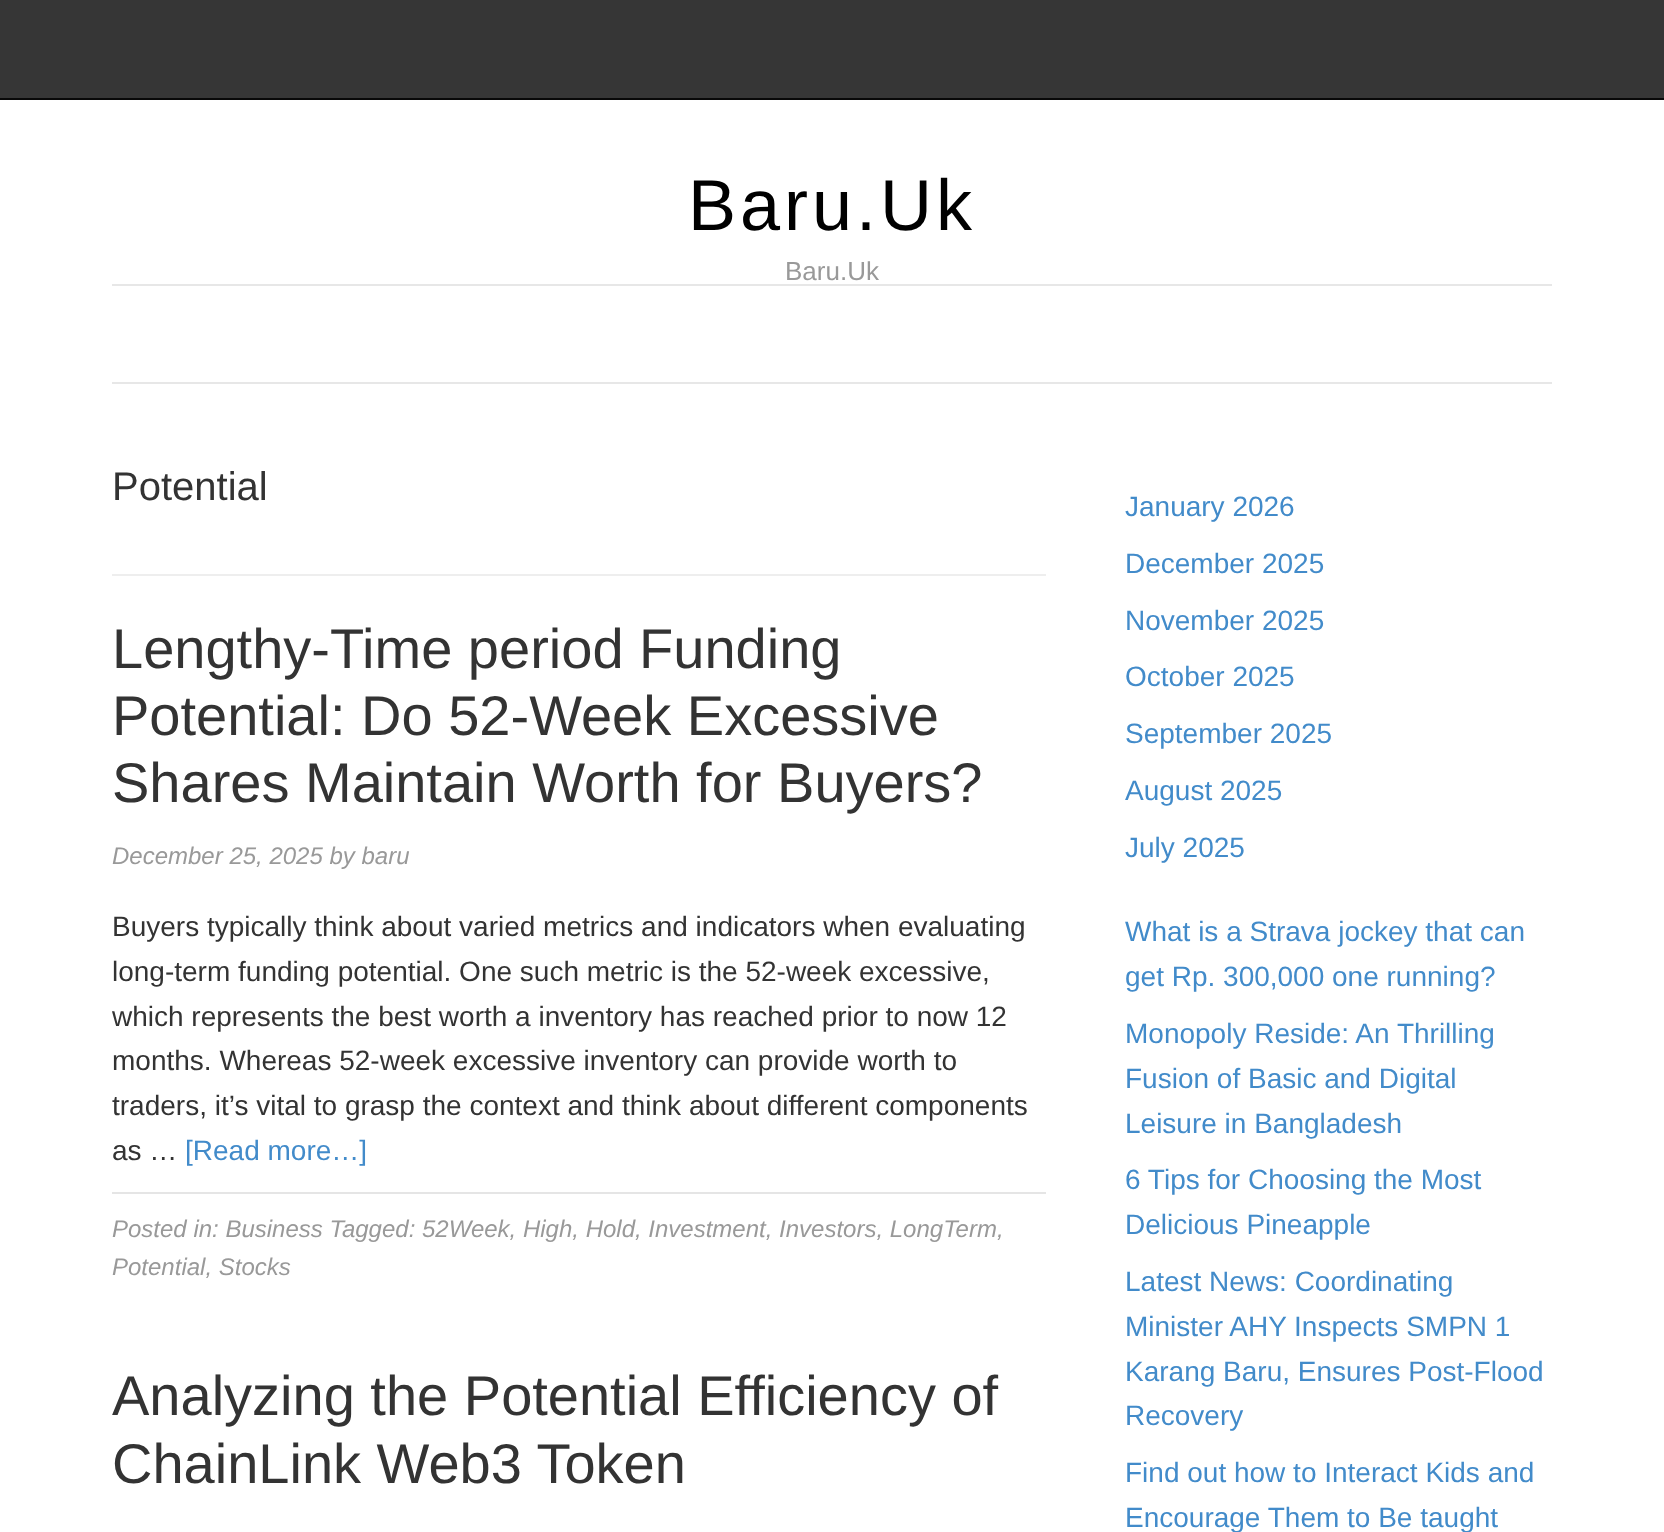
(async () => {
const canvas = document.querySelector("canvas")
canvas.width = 1664
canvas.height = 1532
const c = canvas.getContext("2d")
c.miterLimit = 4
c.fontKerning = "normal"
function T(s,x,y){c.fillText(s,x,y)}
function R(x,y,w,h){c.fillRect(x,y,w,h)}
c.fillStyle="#fff"
R(0,0,1664,1532)
c.fillStyle="#363636"
R(0,0,1664,98)
c.fillStyle="#080808"
R(0,98,1664,2)
c.letterSpacing="4px"
c.font="72px Liberation Sans"
c.fillStyle="#000"
T("Baru.Uk",688,230)
c.letterSpacing="0px"
c.font="26px Liberation Sans"
c.fillStyle="#999"
T("Baru.Uk",785,280)
c.fillStyle="#e7e7e7"
R(112,284,1440,2)
R(112,382,1440,2)
c.fillStyle="#eee"
R(112,574,934,2)
c.font="40px Liberation Sans"
c.fillStyle="#333"
T("Potential",112,500)
c.font="56px Liberation Sans"
T("Lengthy-Time period Funding",112,668)
T("Potential: Do 52-Week Excessive",112,735)
T("Shares Maintain Worth for Buyers?",112,802)
c.font="italic 24px Liberation Sans"
c.fillStyle="#999"
T("December 25, 2025 by baru",112,864)
c.font="28px Liberation Sans"
c.fillStyle="#333"
T("Buyers typically think about varied metrics and indicators when evaluating",112,936)
T("long-term funding potential. One such metric is the 52-week excessive,",112,981)
T("which represents the best worth a inventory has reached prior to now 12",112,1026)
T("months. Whereas 52-week excessive inventory can provide worth to",112,1070)
T("traders, it’s vital to grasp the context and think about different components",112,1115)
T("as …",112,1160)
c.fillStyle="#428bca"
T("[Read more…]",185,1160)
c.fillStyle="#e5e5e5"
R(112,1192,934,2)
c.font="italic 24px Liberation Sans"
c.fillStyle="#999"
T("Posted in: Business Tagged: 52Week, High, Hold, Investment, Investors, LongTerm,",112,1237)
T("Potential, Stocks",112,1275)
c.font="56px Liberation Sans"
c.fillStyle="#333"
T("Analyzing the Potential Efficiency of",112,1415)
T("ChainLink Web3 Token",112,1483)
c.font="28px Liberation Sans"
c.fillStyle="#428bca"
T("January 2026",1125,516)
T("December 2025",1125,573)
T("November 2025",1125,630)
T("October 2025",1125,686)
T("September 2025",1125,743)
T("August 2025",1125,800)
T("July 2025",1125,857)
T("What is a Strava jockey that can",1125,941)
T("get Rp. 300,000 one running?",1125,986)
T("Monopoly Reside: An Thrilling",1125,1043)
T("Fusion of Basic and Digital",1125,1088)
T("Leisure in Bangladesh",1125,1133)
T("6 Tips for Choosing the Most",1125,1189)
T("Delicious Pineapple",1125,1234)
T("Latest News: Coordinating",1125,1291)
T("Minister AHY Inspects SMPN 1",1125,1336)
T("Karang Baru, Ensures Post-Flood",1125,1381)
T("Recovery",1125,1425)
T("Find out how to Interact Kids and",1125,1482)
T("Encourage Them to Be taught",1125,1527)
})()
